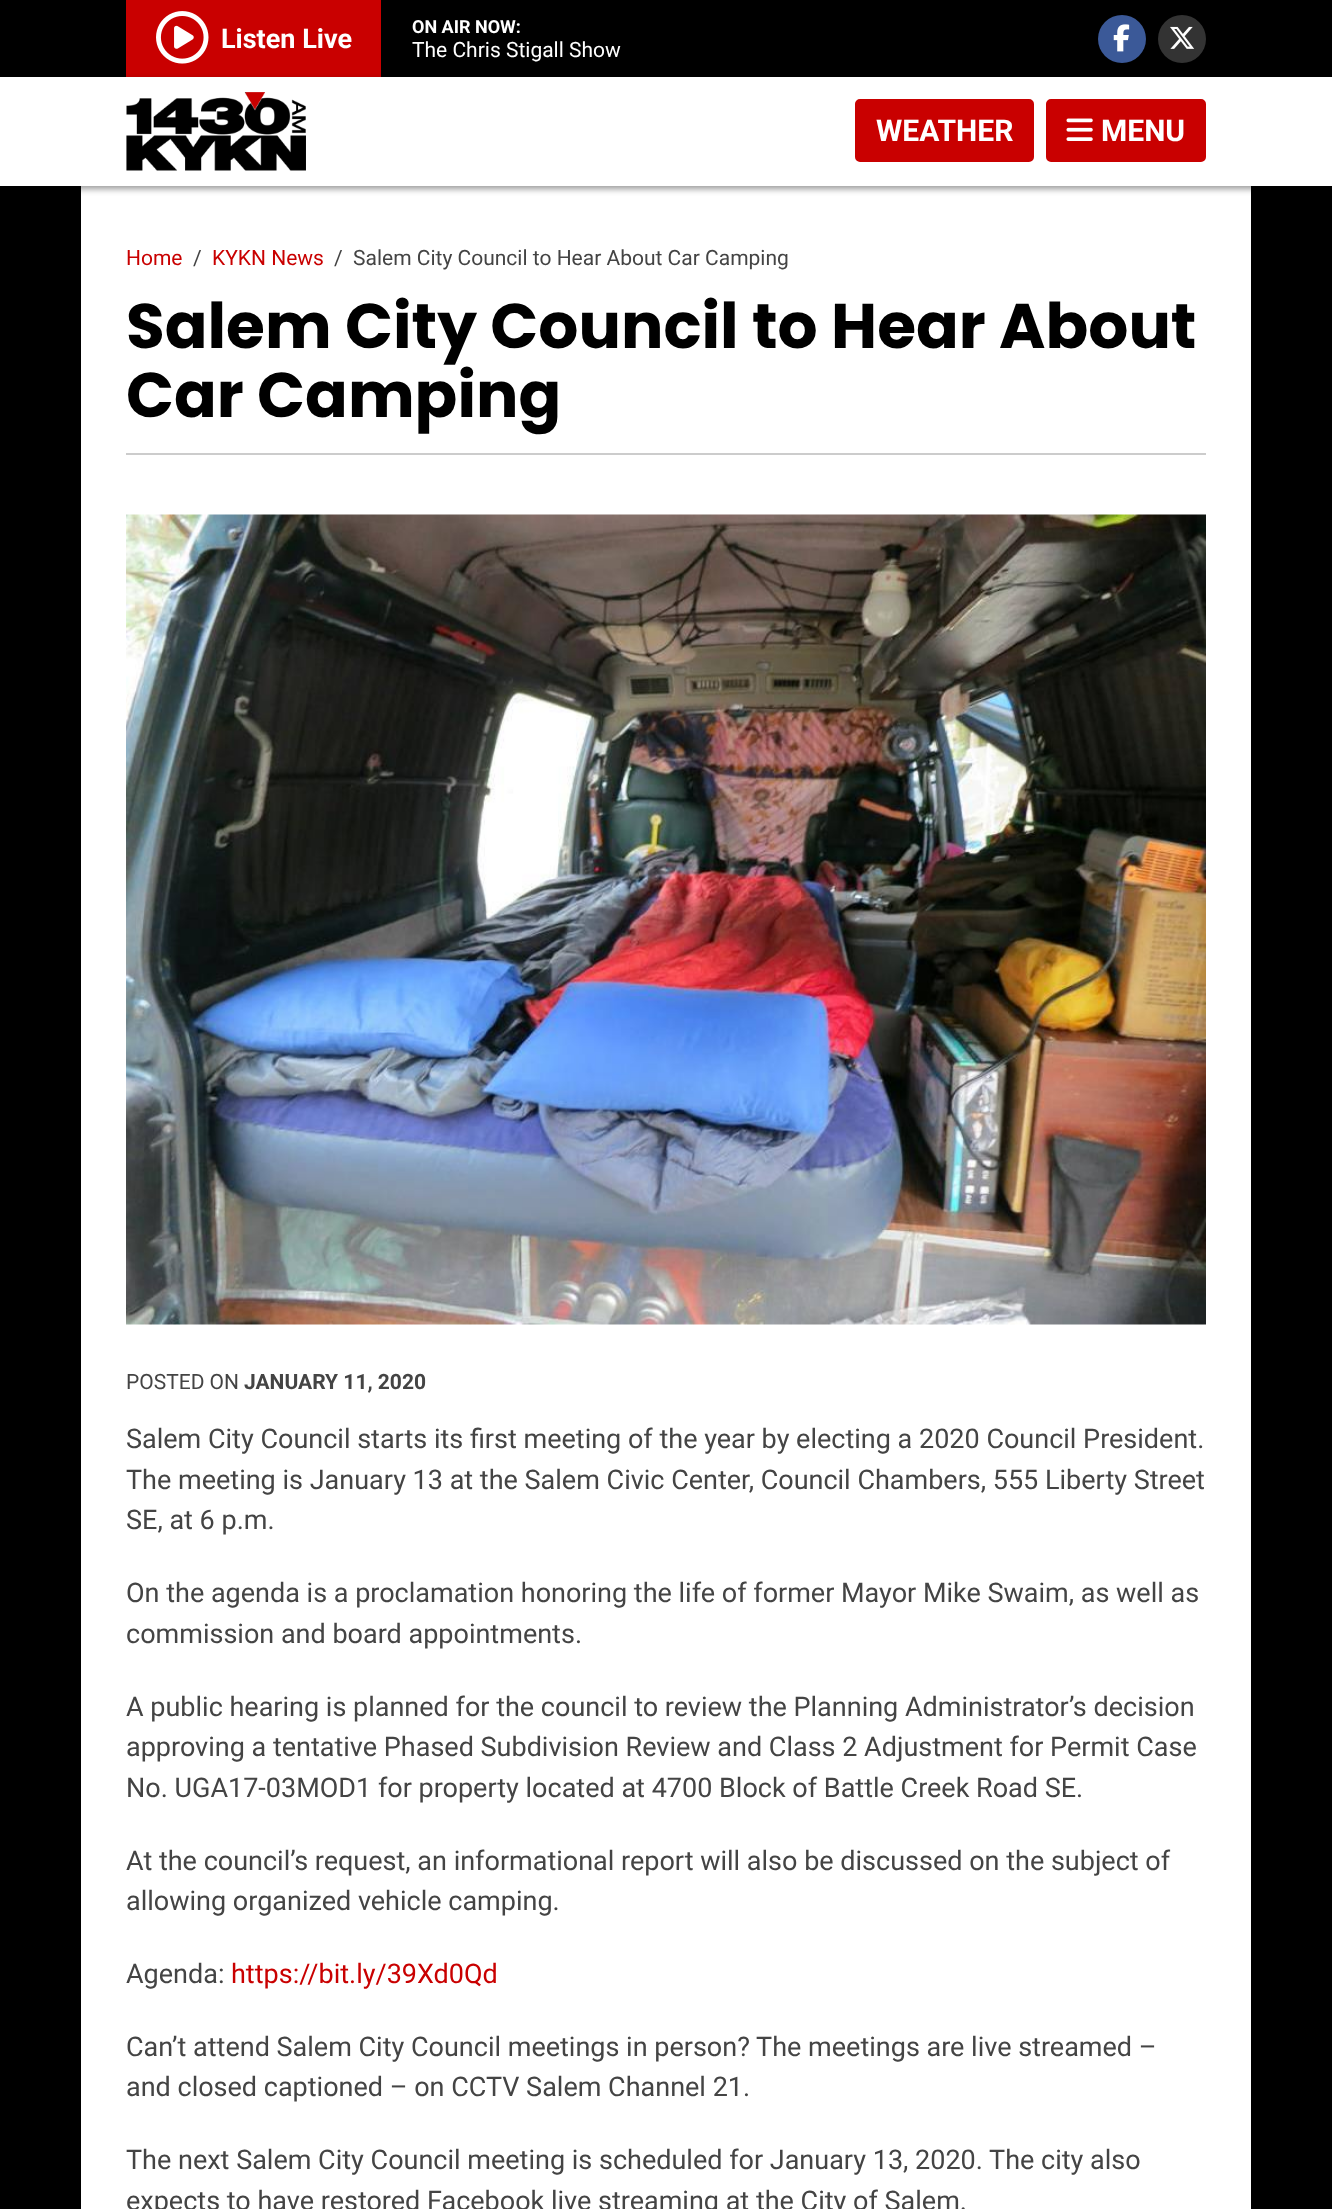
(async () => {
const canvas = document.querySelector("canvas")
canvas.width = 1332
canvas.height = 2209
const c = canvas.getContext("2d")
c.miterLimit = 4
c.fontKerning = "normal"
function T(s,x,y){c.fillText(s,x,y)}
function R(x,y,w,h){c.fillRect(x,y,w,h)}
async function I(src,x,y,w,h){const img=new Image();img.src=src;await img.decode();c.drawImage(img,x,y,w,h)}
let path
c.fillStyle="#fff"
R(0,0,1332,2209)
c.fillStyle="#000"
R(0,0,1332,77)
c.fillStyle="#c90000"
R(126,0,255,77)
await I("1.png",156,11,53,53)
c.font="bold 27px Roboto"
c.fillStyle="#fff"
T("Listen Live",221,48)
c.font="bold 18px Roboto"
T("ON AIR NOW:",412,33)
c.font="21px Roboto"
T("The Chris Stigall Show",412,57)
c.fillStyle="#3b5998"
c.beginPath()
c.arc(1122,39,24,0,7)
c.fill()
await I("2.png",1113,24,17,28)
c.fillStyle="#333"
c.beginPath()
c.arc(1182,39,24,0,7)
c.fill()
await I("3.png",1170,26,25,23)
c.fillStyle="#000"
R(0,186,1332,2023)
c.fillStyle="#fff"
R(81,186,1170,2023)
c.save()
path = new Path2D("M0 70h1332v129h-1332zm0 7h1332v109h-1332z")
c.clip(path,"evenodd")
c.fillStyle="#00000066"
c.filter="blur(3px)"
c.beginPath()
c.rect(0,80,1332,109)
c.fill()
c.filter="none"
c.restore()
await I("4.png",126,92,180,79)
c.fillStyle="#c90000"
c.beginPath()
c.roundRect(856.5,100.5,176,60,3.5)
c.fill()
c.strokeStyle="#c90000"
c.lineWidth=3
c.stroke()
c.font="bold 30px Roboto"
c.fillStyle="#fff"
T("WEATHER",876,141)
c.fillStyle="#c90000"
c.beginPath()
c.roundRect(1047.5,100.5,157,60,3.5)
c.fill()
c.stroke()
await I("5.png",1066,118,27,23)
c.fillStyle="#fff"
T("MENU",1101,141)
c.font="21px Roboto"
c.fillStyle="#c90000"
T("Home",126,265)
c.fillStyle="#444"
T("/",193,265)
c.fillStyle="#c90000"
T("KYKN News",212,265)
c.fillStyle="#444"
T("/",334,265)
T("Salem City Council to Hear About Car Camping",353,265)
c.fillStyle="#ccc"
R(126,453,1080,2)
c.font="bold 63px Poppins"
c.fillStyle="#000"
T("Salem City Council to Hear About",126,348)
T("Car Camping",126,417)
await I("6.png",126,514,1080,811)
c.font="21px Roboto"
c.fillStyle="#444"
T("POSTED ON",126,1389)
c.font="bold 21px Roboto"
T("JANUARY 11, 2020",244,1389)
c.font="27px Roboto"
T("Salem City Council starts its first meeting of the year by electing a 2020 Council President.",126,1448)
T("The meeting is January 13 at the Salem Civic Center, Council Chambers, 555 Liberty Street",126,1489)
T("SE, at 6 p.m.",126,1529)
T("On the agenda is a proclamation honoring the life of former Mayor Mike Swaim, as well as",126,1602)
T("commission and board appointments.",126,1643)
T("A public hearing is planned for the council to review the Planning Administrator’s decision",126,1716)
T("approving a tentative Phased Subdivision Review and Class 2 Adjustment for Permit Case",126,1756)
T("No. UGA17-03MOD1 for property located at 4700 Block of Battle Creek Road SE.",126,1797)
T("At the council’s request, an informational report will also be discussed on the subject of",126,1870)
T("allowing organized vehicle camping.",126,1910)
T("Agenda:",126,1983)
c.fillStyle="#c90000"
T("https://bit.ly/39Xd0Qd",231,1983)
c.fillStyle="#444"
T("Can’t attend Salem City Council meetings in person? The meetings are live streamed –",126,2056)
T("and closed captioned – on CCTV Salem Channel 21.",126,2096)
T("The next Salem City Council meeting is scheduled for January 13, 2020. The city also",126,2169)
T("expects to have restored Facebook live streaming at the City of Salem.",126,2210)
})()
